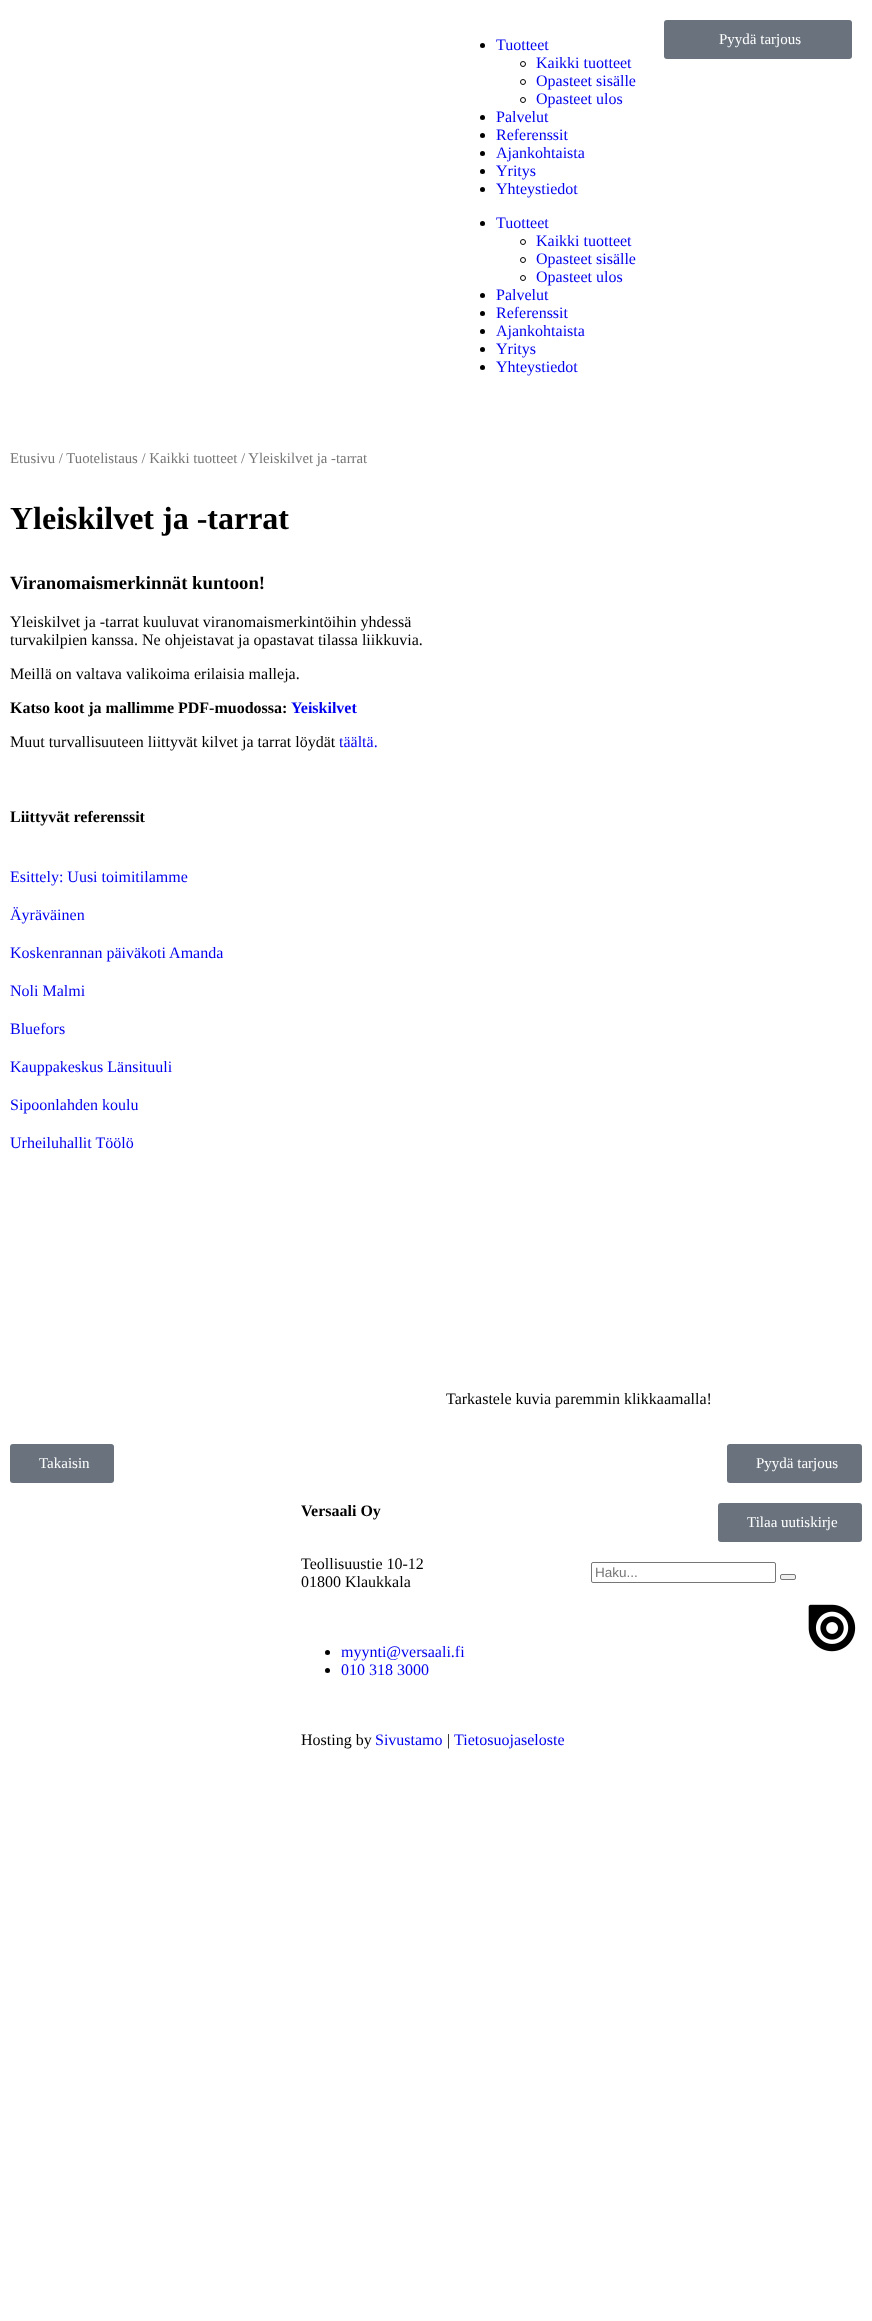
(async () => {
const canvas = document.querySelector("canvas")
canvas.width = 872
canvas.height = 2321
const c = canvas.getContext("2d")
c.miterLimit = 4
c.fontKerning = "normal"
function T(s,x,y){c.fillText(s,x,y)}
function R(x,y,w,h){c.fillRect(x,y,w,h)}
function Q(x,y,w,h,r){c.beginPath();c.roundRect(x,y,w,h,r);c.fill()}
async function I(src,x,y,w,h){const img=new Image();img.src=src;await img.decode();c.drawImage(img,x,y,w,h)}
c.fillStyle="#fff"
R(0,0,872,2321)
c.fillStyle="#000"
c.beginPath()
c.arc(482.5,45.5,2.5,0,7)
c.fill()
c.font="16px Liberation Serif"
c.fillStyle="#00e"
T("Tuotteet",496,50)
c.beginPath()
c.arc(523,64,2.5,0,7)
c.strokeStyle="#000"
c.stroke()
T("Kaikki tuotteet",536,68)
c.beginPath()
c.arc(523,82,2.5,0,7)
c.stroke()
T("Opasteet sisälle",536,86)
c.beginPath()
c.arc(523,100,2.5,0,7)
c.stroke()
T("Opasteet ulos",536,104)
c.fillStyle="#000"
c.beginPath()
c.arc(482.5,117.5,2.5,0,7)
c.fill()
c.fillStyle="#00e"
T("Palvelut",496,122)
c.fillStyle="#000"
c.beginPath()
c.arc(482.5,135.5,2.5,0,7)
c.fill()
c.fillStyle="#00e"
T("Referenssit",496,140)
c.fillStyle="#000"
c.beginPath()
c.arc(482.5,153.5,2.5,0,7)
c.fill()
c.fillStyle="#00e"
T("Ajankohtaista",496,158)
c.fillStyle="#000"
c.beginPath()
c.arc(482.5,171.5,2.5,0,7)
c.fill()
c.fillStyle="#00e"
T("Yritys",496,176)
c.fillStyle="#000"
c.beginPath()
c.arc(482.5,189.5,2.5,0,7)
c.fill()
c.fillStyle="#00e"
T("Yhteystiedot",496,194)
c.fillStyle="#000"
c.beginPath()
c.arc(482.5,223.5,2.5,0,7)
c.fill()
c.fillStyle="#00e"
T("Tuotteet",496,228)
c.beginPath()
c.arc(523,242,2.5,0,7)
c.stroke()
T("Kaikki tuotteet",536,246)
c.beginPath()
c.arc(523,260,2.5,0,7)
c.stroke()
T("Opasteet sisälle",536,264)
c.beginPath()
c.arc(523,278,2.5,0,7)
c.stroke()
T("Opasteet ulos",536,282)
c.fillStyle="#000"
c.beginPath()
c.arc(482.5,295.5,2.5,0,7)
c.fill()
c.fillStyle="#00e"
T("Palvelut",496,300)
c.fillStyle="#000"
c.beginPath()
c.arc(482.5,313.5,2.5,0,7)
c.fill()
c.fillStyle="#00e"
T("Referenssit",496,318)
c.fillStyle="#000"
c.beginPath()
c.arc(482.5,331.5,2.5,0,7)
c.fill()
c.fillStyle="#00e"
T("Ajankohtaista",496,336)
c.fillStyle="#000"
c.beginPath()
c.arc(482.5,349.5,2.5,0,7)
c.fill()
c.fillStyle="#00e"
T("Yritys",496,354)
c.fillStyle="#000"
c.beginPath()
c.arc(482.5,367.5,2.5,0,7)
c.fill()
c.fillStyle="#00e"
T("Yhteystiedot",496,372)
c.fillStyle="#69727d"
Q(664,20,188,39,3)
c.font="15px Liberation Serif"
c.fillStyle="#fff"
T("Pyydä tarjous",719,44)
c.font="14.75px Liberation Serif"
c.fillStyle="#767676"
T("Etusivu / Tuotelistaus / Kaikki tuotteet / Yleiskilvet ja -tarrat",10,463)
c.font="bold 32px Liberation Serif"
c.fillStyle="#000"
T("Yleiskilvet ja -tarrat",10,529)
c.font="bold 18.75px Liberation Serif"
T("Viranomaismerkinnät kuntoon!",10,589)
c.font="16px Liberation Serif"
T("Yleiskilvet ja -tarrat kuuluvat viranomaismerkintöihin yhdessä",10,627)
T("turvakilpien kanssa. Ne ohjeistavat ja opastavat tilassa liikkuvia.",10,645)
T("Meillä on valtava valikoima erilaisia malleja.",10,679)
c.font="bold 16px Liberation Serif"
T("Katso koot ja mallimme PDF-muodossa:",10,713)
c.fillStyle="#00e"
T("Yeiskilvet",291,713)
c.font="16px Liberation Serif"
c.fillStyle="#000"
T("Muut turvallisuuteen liittyvät kilvet ja tarrat löydät",10,747)
c.fillStyle="#00e"
T("täältä.",339,747)
c.font="bold 16px Liberation Serif"
c.fillStyle="#000"
T("Liittyvät referenssit",10,822)
c.font="16px Liberation Serif"
c.fillStyle="#00e"
T("Esittely: Uusi toimitilamme",10,882)
T("Äyräväinen",10,920)
T("Koskenrannan päiväkoti Amanda",10,958)
T("Noli Malmi",10,996)
T("Bluefors",10,1034)
T("Kauppakeskus Länsituuli",10,1072)
T("Sipoonlahden koulu",10,1110)
T("Urheiluhallit Töölö",10,1148)
c.fillStyle="#000"
T("Tarkastele kuvia paremmin klikkaamalla!",446,1404)
c.fillStyle="#69727d"
Q(10,1444,104,39,3)
c.font="15px Liberation Serif"
c.fillStyle="#fff"
T("Takaisin",39,1468)
c.fillStyle="#69727d"
Q(727,1444,135,39,3)
c.fillStyle="#fff"
T("Pyydä tarjous",756,1468)
c.font="bold 16px Liberation Serif"
c.fillStyle="#000"
T("Versaali Oy",301,1516)
c.font="16px Liberation Serif"
T("Teollisuustie 10-12",301,1569)
T("01800 Klaukkala",301,1587)
c.beginPath()
c.arc(327.5,1652.5,2.5,0,7)
c.fill()
c.fillStyle="#00e"
T("myynti@versaali.fi",341,1657)
c.fillStyle="#000"
c.beginPath()
c.arc(327.5,1670.5,2.5,0,7)
c.fill()
c.fillStyle="#00e"
T("010 318 3000",341,1675)
c.fillStyle="#000"
T("Hosting by",301,1745)
c.fillStyle="#00e"
T("Sivustamo",375,1745)
c.fillStyle="#000"
T("|",447,1745)
c.fillStyle="#00e"
T("Tietosuojaseloste",454,1745)
c.fillStyle="#69727d"
Q(718,1503,144,39,3)
c.font="15px Liberation Serif"
c.fillStyle="#fff"
T("Tilaa uutiskirje",747,1527)
c.beginPath()
c.roundRect(591.5,1562.5,184,20,1.5)
c.strokeStyle="#767676"
c.stroke()
c.font="13.5px Liberation Sans"
c.fillStyle="#767676"
T("Haku...",595,1577)
c.fillStyle="#efefef"
c.beginPath()
c.roundRect(780.5,1574.5,15,5,1.5)
c.fill()
c.stroke()
await I("1.png",808,1604,48,48)
})()
